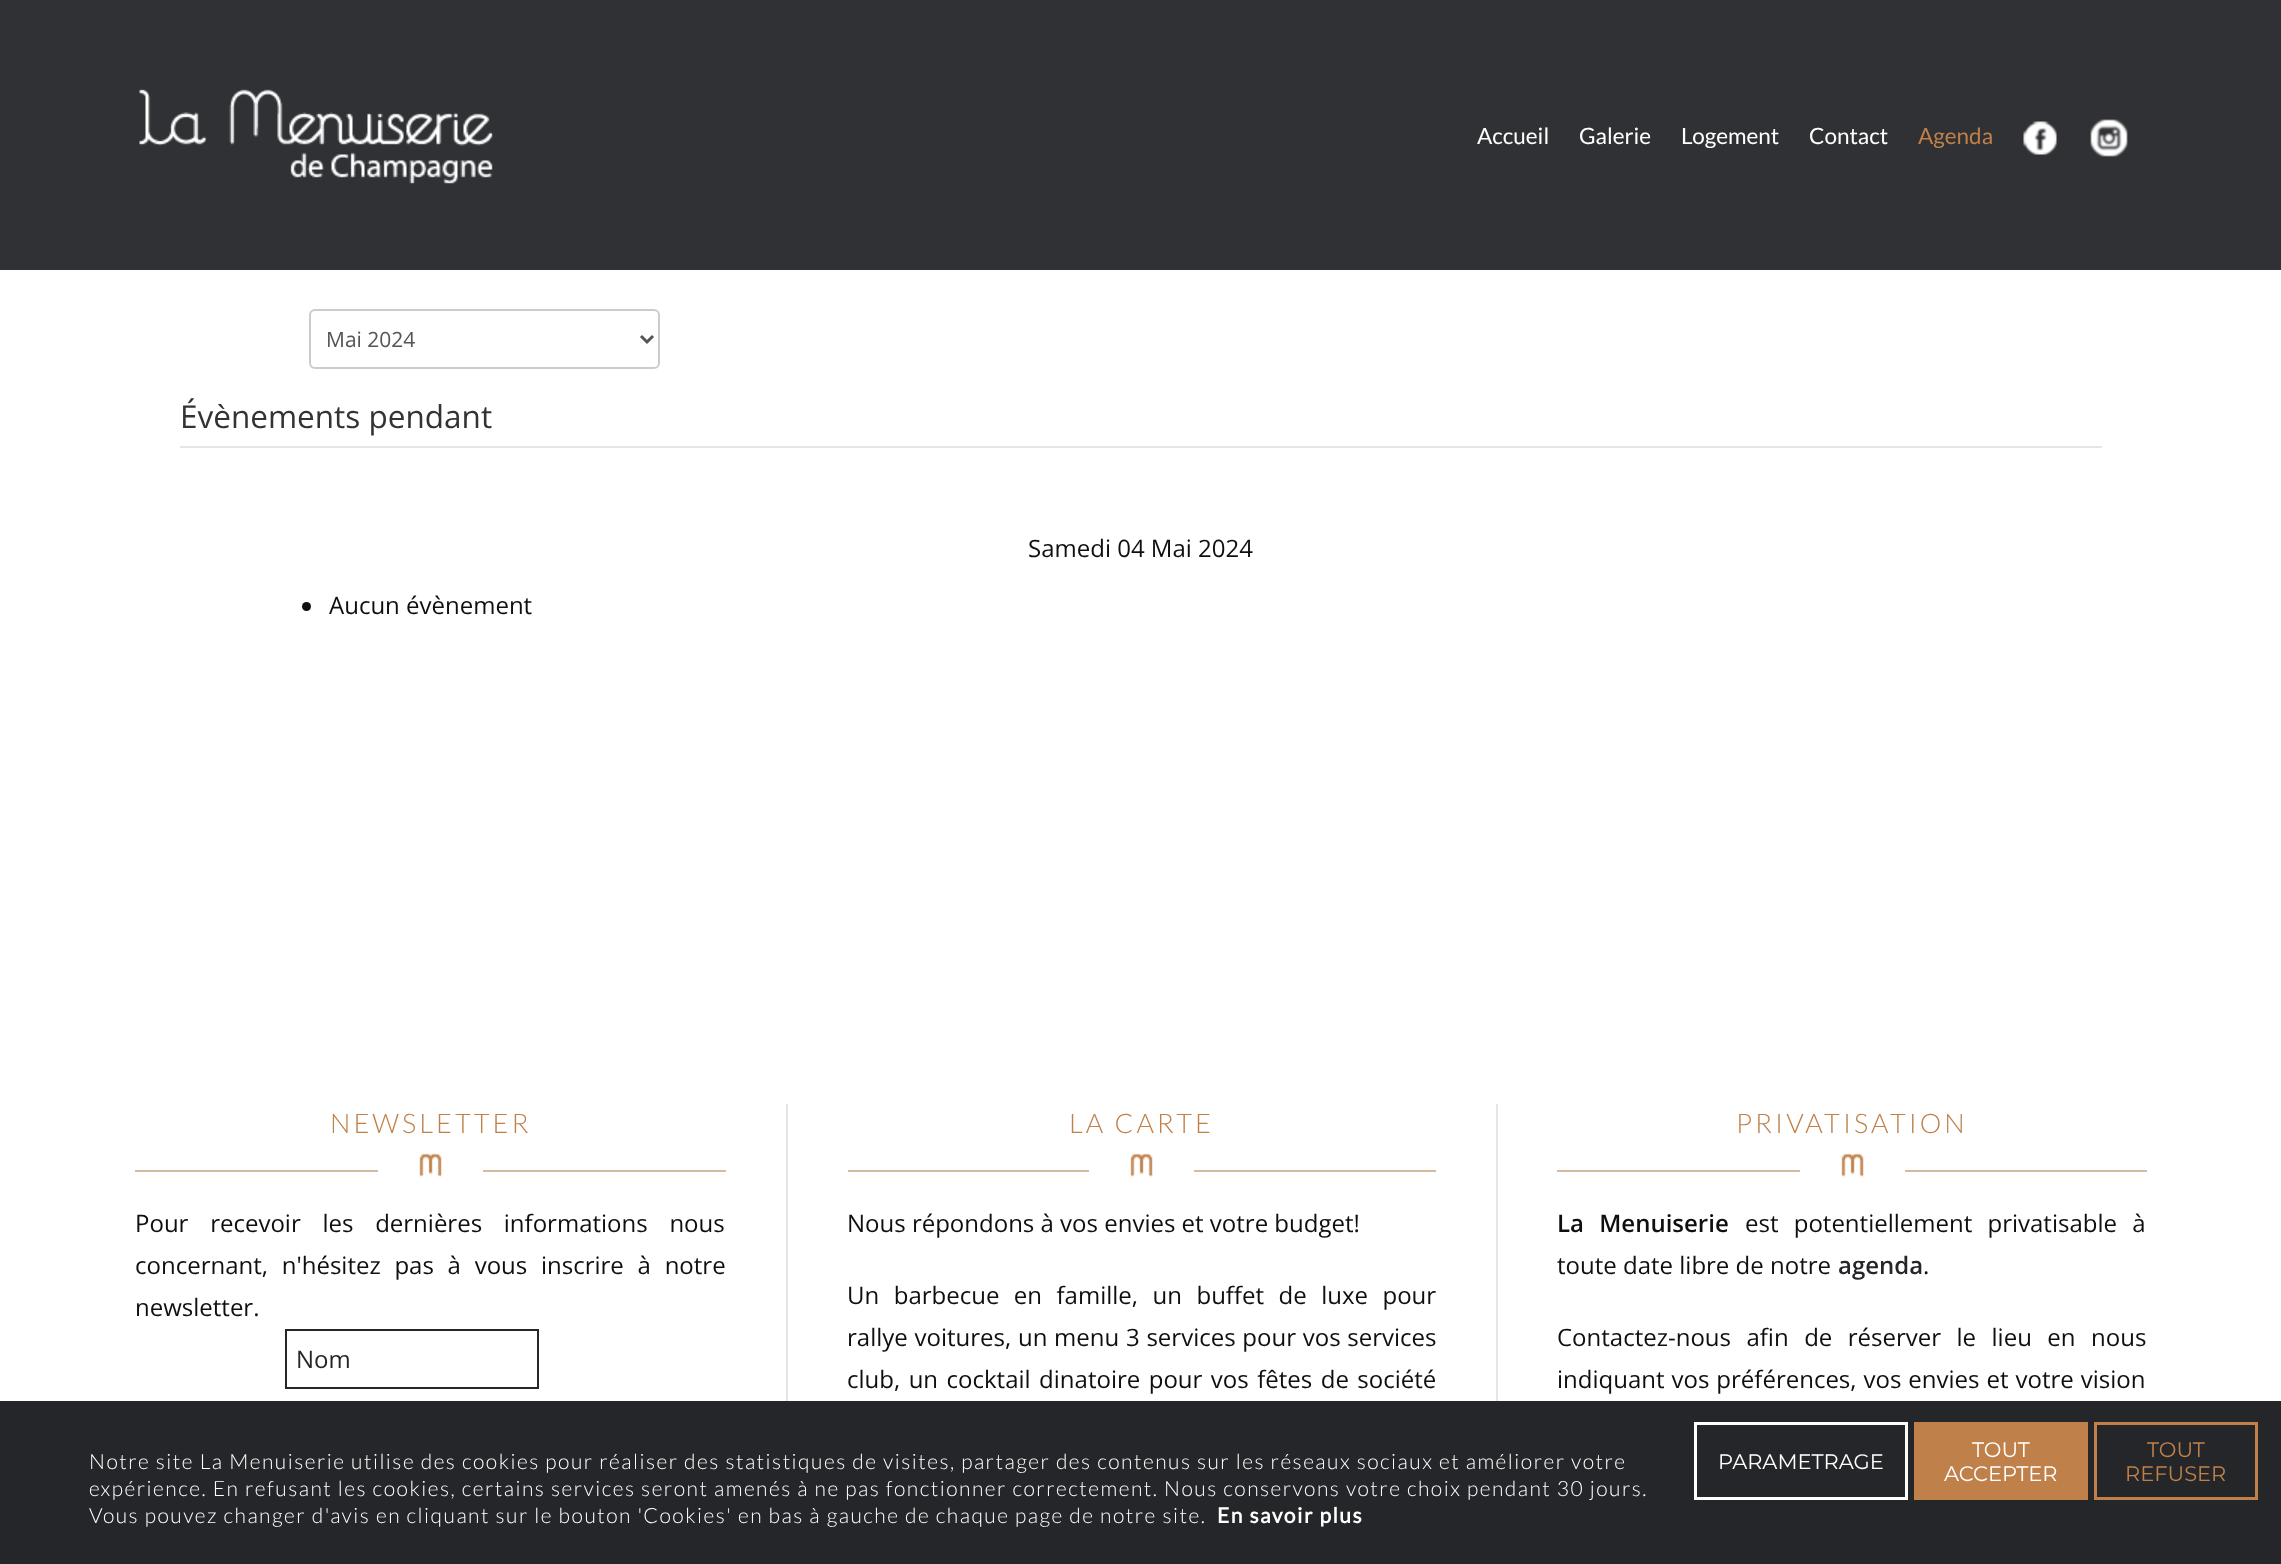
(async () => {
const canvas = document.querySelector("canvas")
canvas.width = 2281
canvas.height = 1564
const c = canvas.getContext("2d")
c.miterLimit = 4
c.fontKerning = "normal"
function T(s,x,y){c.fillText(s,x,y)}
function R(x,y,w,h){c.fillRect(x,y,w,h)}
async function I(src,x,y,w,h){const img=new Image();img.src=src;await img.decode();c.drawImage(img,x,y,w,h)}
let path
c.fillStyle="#fff"
R(0,0,2281,1564)
c.fillStyle="#303135"
R(0,0,2281,270)
await I("1.png",139,89,354,95)
c.font="22.5px Lato"
c.fillStyle="#fff"
T("Accueil",1477,144)
T("Galerie",1579,144)
T("Logement",1681,144)
T("Contact",1809,144)
c.fillStyle="#bf804a"
T("Agenda",1918,144)
await I("2.png",2023,121,34,34)
await I("3.png",2090,119,38,38)
c.beginPath()
c.roundRect(310,310,349,58,5)
c.strokeStyle="#ccc"
c.lineWidth=2
c.stroke()
path = new Path2D("M641 336l6 6l6-6")
c.strokeStyle="#555"
c.lineWidth=3
c.stroke(path)
c.font="21px Open Sans"
c.fillStyle="#555"
T("Mai 2024",326,347)
c.fillStyle="#e5e5e5"
R(180,446,1922,2)
c.font="31.5px Open Sans"
c.fillStyle="#333"
T("Évènements pendant",180,428)
c.font="24px Open Sans"
c.fillStyle="#0f0f0f"
T("Samedi 04 Mai 2024",1028,557)
c.beginPath()
c.arc(306.5,606.5,4.5,0,7)
c.fill()
T("Aucun évènement",329,614)
c.fillStyle="#d8baa0"
R(135,1170,591,2)
c.letterSpacing="3px"
c.font="300 27px Lato"
c.fillStyle="#bf804a"
T("NEWSLETTER",330,1133)
c.fillStyle="#fff"
R(378,1170,105,2)
await I("4.png",419,1153,23,24)
c.letterSpacing="0px"
c.wordSpacing="15.5px"
c.font="24px Open Sans"
c.fillStyle="#0f0f0f"
T("Pour recevoir les dernières informations nous",135,1232)
c.wordSpacing="7.5px"
T("concernant, n'hésitez pas à vous inscrire à notre",135,1274)
c.wordSpacing="0px"
T("newsletter.",135,1316)
c.strokeStyle="#25262a"
c.lineWidth=2
c.strokeRect(286,1330,252,58)
c.fillStyle="#25262a"
T("Nom",296,1368)
c.fillStyle="#e4e6e6"
R(786,1104,2,297)
c.fillStyle="#d8baa0"
R(848,1170,588,2)
c.letterSpacing="3px"
c.font="300 27px Lato"
c.fillStyle="#bf804a"
T("LA CARTE",1069,1133)
c.fillStyle="#fff"
R(1089,1170,105,2)
await I("5.png",1130,1153,23,24)
c.letterSpacing="0px"
c.font="24px Open Sans"
c.fillStyle="#0f0f0f"
T("Nous répondons à vos envies et votre budget!",847,1232)
c.wordSpacing="8.25px"
T("Un barbecue en famille, un buffet de luxe pour",847,1304)
c.wordSpacing="0.5px"
T("rallye voitures, un menu 3 services pour vos services",847,1346)
c.wordSpacing="2.25px"
T("club, un cocktail dinatoire pour vos fêtes de société",847,1388)
c.fillStyle="#e4e6e6"
R(1496,1104,2,297)
c.fillStyle="#d8baa0"
R(1557,1170,590,2)
c.letterSpacing="3px"
c.wordSpacing="0px"
c.font="300 27px Lato"
c.fillStyle="#bf804a"
T("PRIVATISATION",1736,1133)
c.fillStyle="#fff"
R(1800,1170,105,2)
await I("6.png",1841,1153,23,24)
c.letterSpacing="0px"
c.wordSpacing="9px"
c.font="600 24px Open Sans"
c.fillStyle="#0f0f0f"
T("La Menuiserie",1557,1232)
c.font="24px Open Sans"
T("est potentiellement privatisable à",1745,1232)
c.wordSpacing="0px"
T("toute date libre de notre",1557,1274)
c.font="600 24px Open Sans"
c.fillStyle="#25262a"
T("agenda",1838,1274)
c.font="24px Open Sans"
c.fillStyle="#0f0f0f"
T(".",1923,1274)
c.wordSpacing="9.25px"
T("Contactez-nous afin de réserver le lieu en nous",1557,1346)
c.wordSpacing="0.75px"
T("indiquant vos préférences, vos envies et votre vision",1557,1388)
c.fillStyle="#25262a"
R(0,1401,2281,163)
c.letterSpacing="1.5px"
c.wordSpacing="0px"
c.font="300 21px Lato"
c.fillStyle="#fff"
T("Notre site La Menuiserie utilise des cookies pour réaliser des statistiques de visites, partager des contenus sur les réseaux sociaux et améliorer votre",89,1469)
T("expérience. En refusant les cookies, certains services seront amenés à ne pas fonctionner correctement. Nous conservons votre choix pendant 30 jours.",89,1496)
T("Vous pouvez changer d'avis en cliquant sur le bouton 'Cookies' en bas à gauche de chaque page de notre site.",89,1523)
c.font="bold 21px Lato"
T("En savoir plus",1217,1523)
c.strokeStyle="#fff"
c.lineWidth=3
c.strokeRect(1695.5,1423.5,211,75)
c.letterSpacing="0px"
c.font="21px Montserrat"
T("PARAMETRAGE",1718,1469)
c.fillStyle="#bf804a"
R(1914,1422,174,78)
c.fillStyle="#fff"
T("TOUT",1972,1457)
T("ACCEPTER",1944,1481)
c.strokeStyle="#bf804a"
c.strokeRect(2095.5,1423.5,161,75)
c.fillStyle="#bf804a"
T("TOUT",2147,1457)
T("REFUSER",2125,1481)
})()
